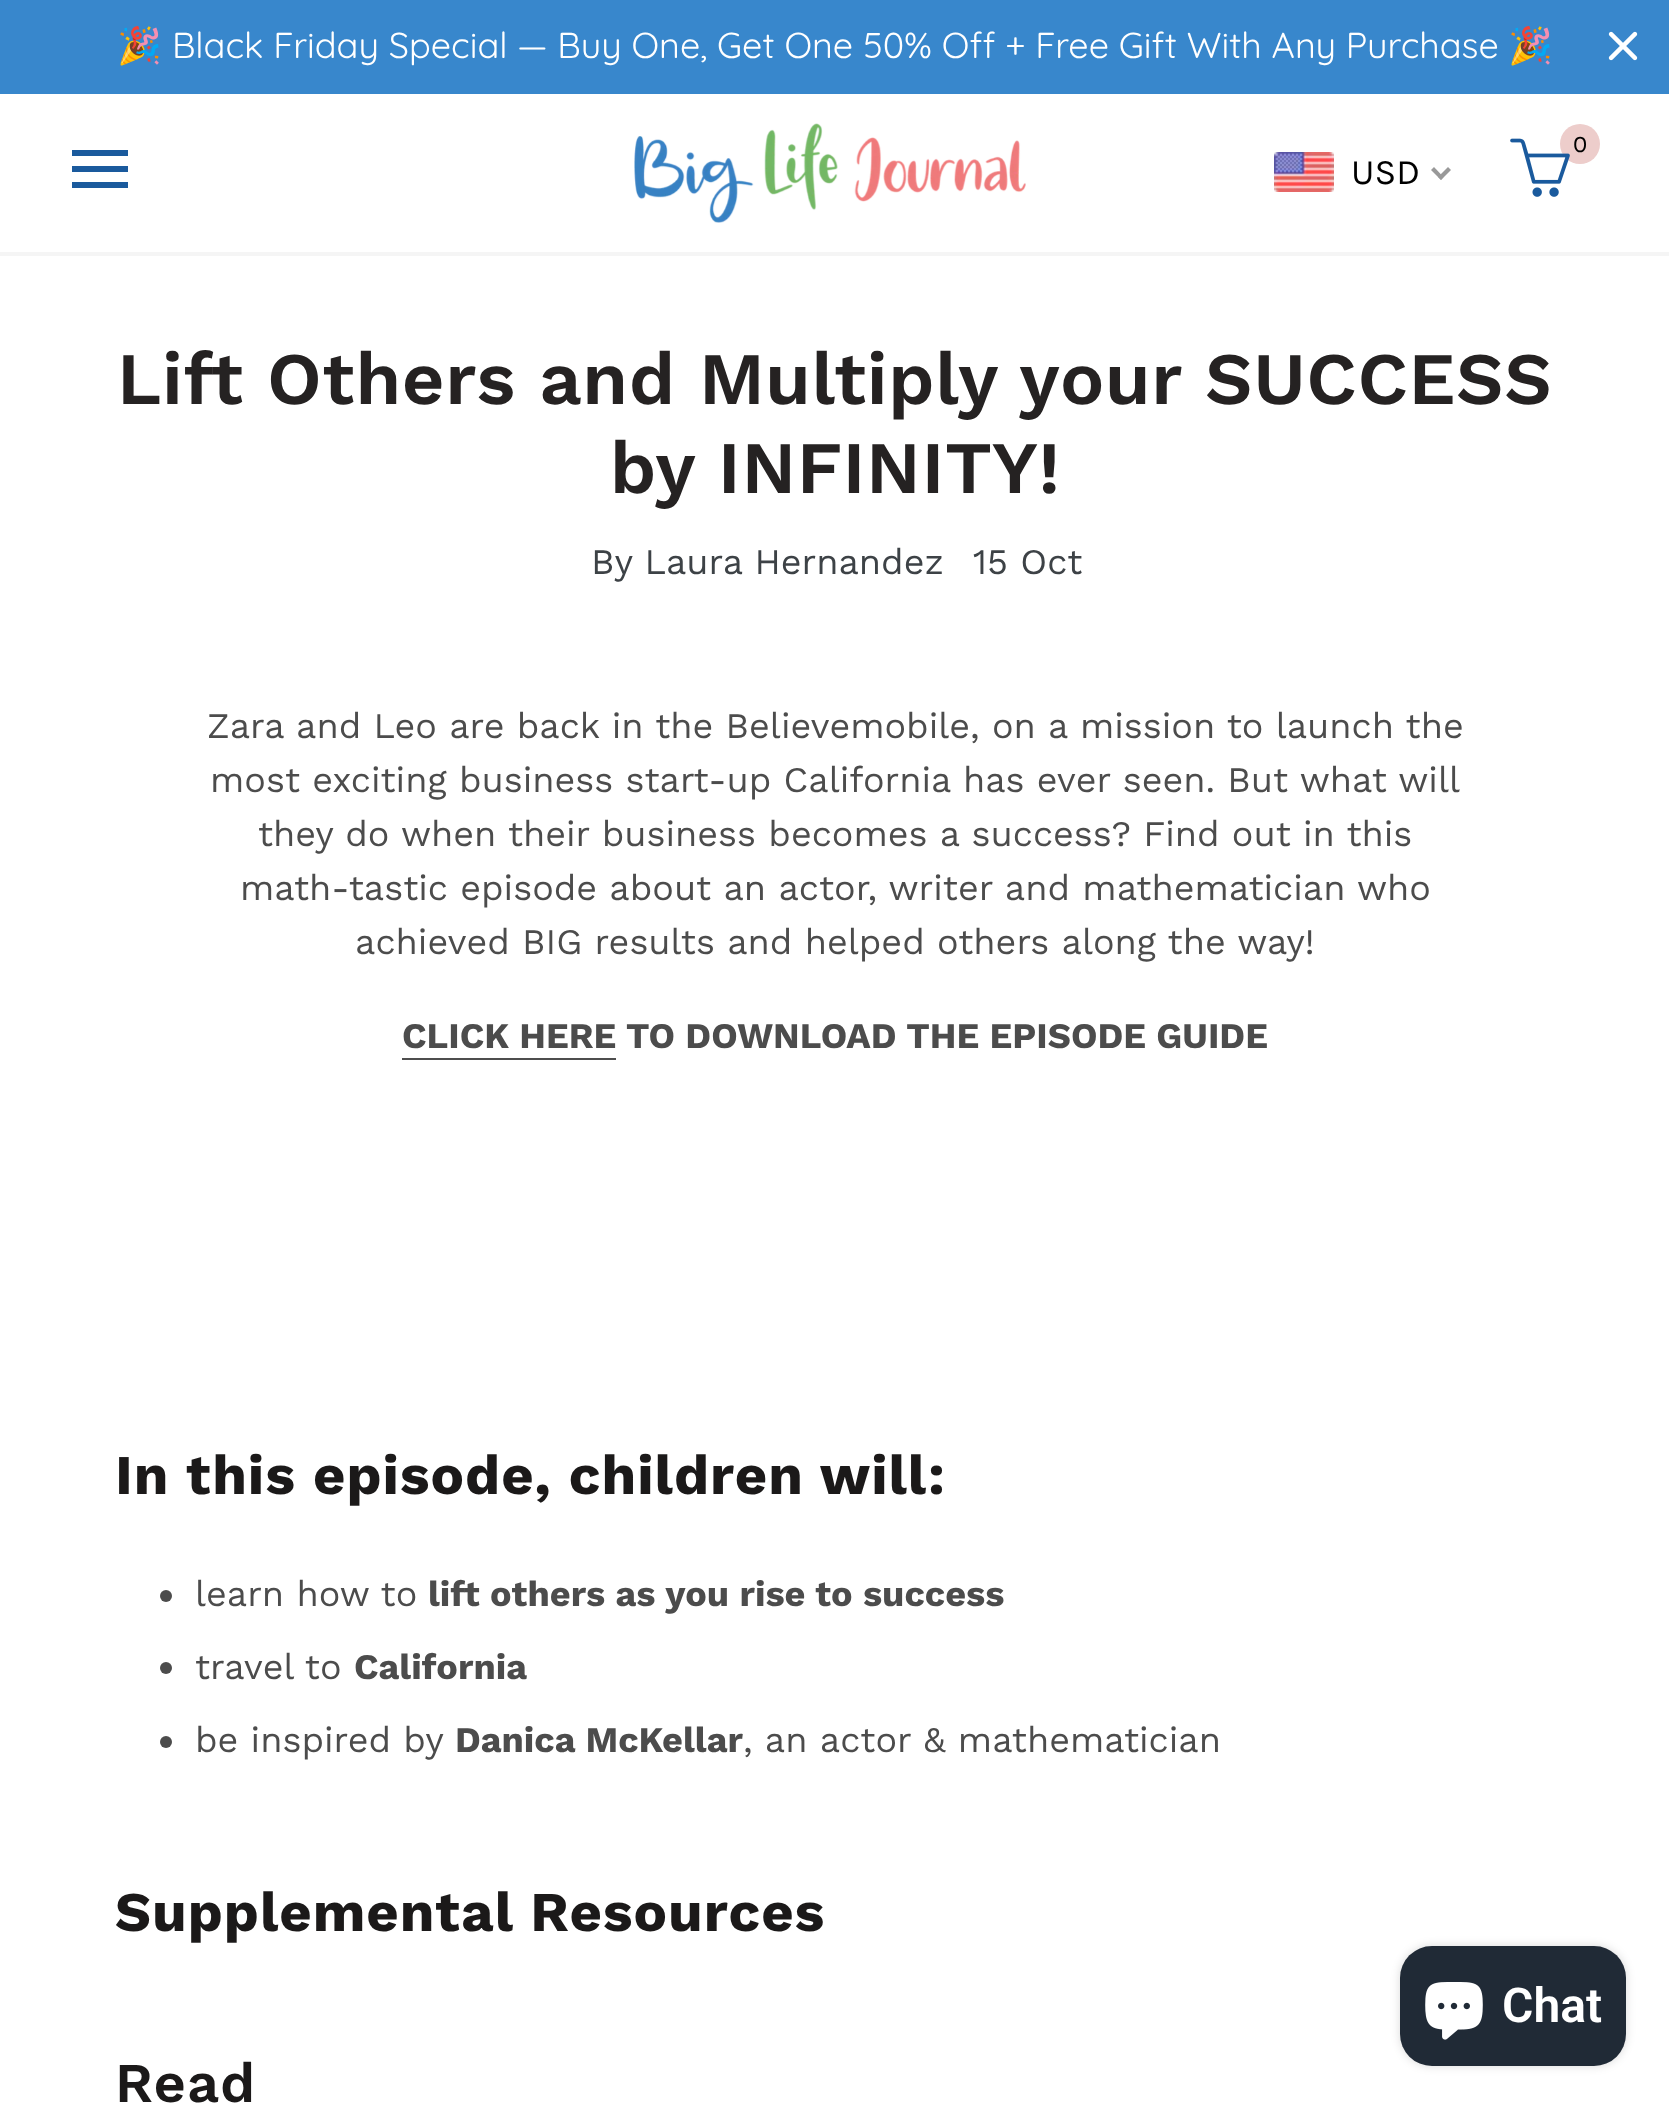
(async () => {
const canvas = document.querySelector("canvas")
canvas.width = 1669
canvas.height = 2108
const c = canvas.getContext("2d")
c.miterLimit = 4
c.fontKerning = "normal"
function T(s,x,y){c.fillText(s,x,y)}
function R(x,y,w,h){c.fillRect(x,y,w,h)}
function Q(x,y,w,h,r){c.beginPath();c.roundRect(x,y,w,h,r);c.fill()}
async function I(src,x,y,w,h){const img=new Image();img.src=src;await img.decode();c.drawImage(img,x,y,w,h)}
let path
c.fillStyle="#fff"
R(0,0,1669,2108)
c.fillStyle="#3887cc"
R(0,0,1669,94)
c.font="36px Noto Color Emoji"
c.fillStyle="#fff"
T("🎉",117,58)
c.font="300 36px Quicksand"
T("Black Friday Special — Buy One, Get One 50% Off + Free Gift With Any Purchase",172,58)
c.font="36px Noto Color Emoji"
T("🎉",1508,58)
await I("1.png",1608,31,30,30)
c.fillStyle="#f5f5f5"
R(0,252,1669,4)
c.fillStyle="#1a5a9d"
R(72,166,56,6)
R(72,150,56,6)
R(72,182,56,6)
await I("2.png",634,123,392,100)
c.fillStyle="#edcdcb"
c.beginPath()
c.arc(1580,144,20,0,7)
c.fill()
await I("3.png",1510,138,60,59)
c.letterSpacing="0.6px"
c.font="24px Karla"
c.fillStyle="#000"
T("0",1573,152)
await I("4.png",1274,152,60,40)
c.letterSpacing="0px"
c.font="36px Karla"
T("USD",1351,184)
c.fillStyle="#999"
path = new Path2D("M1448 167l3 3l-10 10l-3-3z")
c.fill(path)
path = new Path2D("M1434 167l9.5 10l-2.5 3l-10-10z")
c.fill(path)
c.letterSpacing="0.6px"
c.font="600 74px Work Sans"
c.fillStyle="#252222"
T("Lift Others and Multiply your SUCCESS",117,404)
T("by INFINITY!",610,493)
c.letterSpacing="0px"
c.font="36px Work Sans"
c.fillStyle="#3d4246"
T("By Laura Hernandez",591,574)
T("15 Oct",973,574)
c.fillStyle="#4c4c4c"
T("Zara and Leo are back in the Believemobile, on a mission to launch the",207,738)
T("most exciting business start-up California has ever seen. But what will",210,792)
T("they do when their business becomes a success? Find out in this",258,846)
T("math-tastic episode about an actor, writer and mathematician who",240,900)
T("achieved BIG results and helped others along the way!",355,954)
c.font="bold 36px Work Sans"
T("CLICK HERE",402,1048)
c.fillStyle="#4e4e4e"
R(402,1058,214,2)
c.fillStyle="#4c4c4c"
T("TO DOWNLOAD THE EPISODE GUIDE",626,1048)
c.letterSpacing="1px"
c.font="bold 56px Work Sans"
c.fillStyle="#1b1919"
T("In this episode, children will:",115,1494)
c.fillStyle="#4c4c4c"
c.beginPath()
c.arc(166,1596,6,0,7)
c.fill()
c.letterSpacing="0px"
c.font="36px Work Sans"
T("learn how to",195,1606)
c.font="bold 36px Work Sans"
T("lift others as you rise to success",428,1606)
c.beginPath()
c.arc(166,1668,6,0,7)
c.fill()
c.font="36px Work Sans"
T("travel to",195,1679)
c.font="bold 36px Work Sans"
T("California",354,1679)
c.beginPath()
c.arc(166,1742,6,0,7)
c.fill()
c.font="36px Work Sans"
T("be inspired by",195,1752)
c.font="bold 36px Work Sans"
T("Danica McKellar",455,1752)
c.font="36px Work Sans"
T(", an actor & mathematician",743,1752)
c.letterSpacing="1px"
c.font="bold 56px Work Sans"
c.fillStyle="#1b1919"
T("Supplemental Resources",115,1931)
c.font="600 56px Work Sans"
T("Read",115,2102)
c.fillStyle="#00000026"
c.filter="blur(5px)"
c.beginPath()
c.roundRect(1400,1946,226,120,32)
c.fill()
c.filter="none"
c.fillStyle="#202a36"
Q(1400,1946,226,120,32)
await I("5.png",1425,1982,58,58)
c.letterSpacing="0px"
c.font="600 48px Roboto"
c.fillStyle="#fff"
T("Chat",1502,2022)
})()
